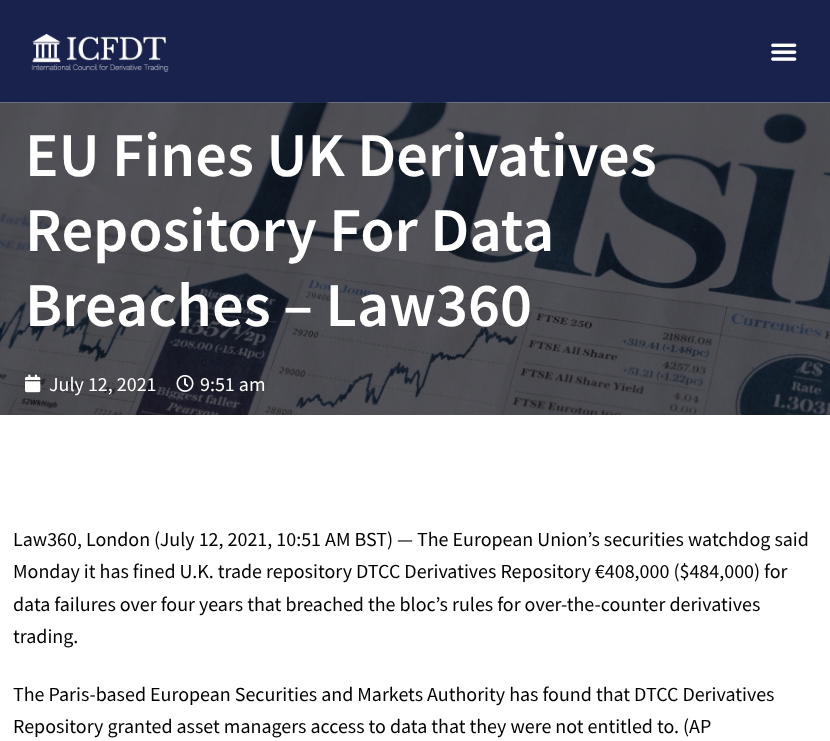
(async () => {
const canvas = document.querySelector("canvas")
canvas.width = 830
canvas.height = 741
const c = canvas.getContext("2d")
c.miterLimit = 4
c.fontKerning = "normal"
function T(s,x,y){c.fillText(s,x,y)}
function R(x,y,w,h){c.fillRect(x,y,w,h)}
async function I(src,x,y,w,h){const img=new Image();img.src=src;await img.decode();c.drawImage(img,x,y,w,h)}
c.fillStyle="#fff"
R(0,0,830,741)
c.fillStyle="#19224c"
R(0,0,830,103)
await I("1.png",31,33,138,39)
await I("2.png",771,43,26,18)
await I("3.png",0,102,830,313)
c.font="600 62.5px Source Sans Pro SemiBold"
c.fillStyle="#fff"
T("EU Fines UK Derivatives",25,176)
T("Repository For Data",25,251)
T("Breaches – Law360",25,326)
await I("4.png",25,374,16,19)
c.font="20px Source Sans Pro"
T("July 12, 2021",49,391)
await I("5.png",176,375,18,17)
T("9:51 am",200,391)
c.fillStyle="#000"
T("Law360, London (July 12, 2021, 10:51 AM BST) — The European Union’s securities watchdog said",13,546)
T("Monday it has fined U.K. trade repository DTCC Derivatives Repository €408,000 ($484,000) for",13,578)
T("data failures over four years that breached the bloc’s rules for over-the-counter derivatives",13,611)
T("trading.",13,643)
T("The Paris-based European Securities and Markets Authority has found that DTCC Derivatives",13,701)
T("Repository granted asset managers access to data that they were not entitled to. (AP",13,733)
})()
